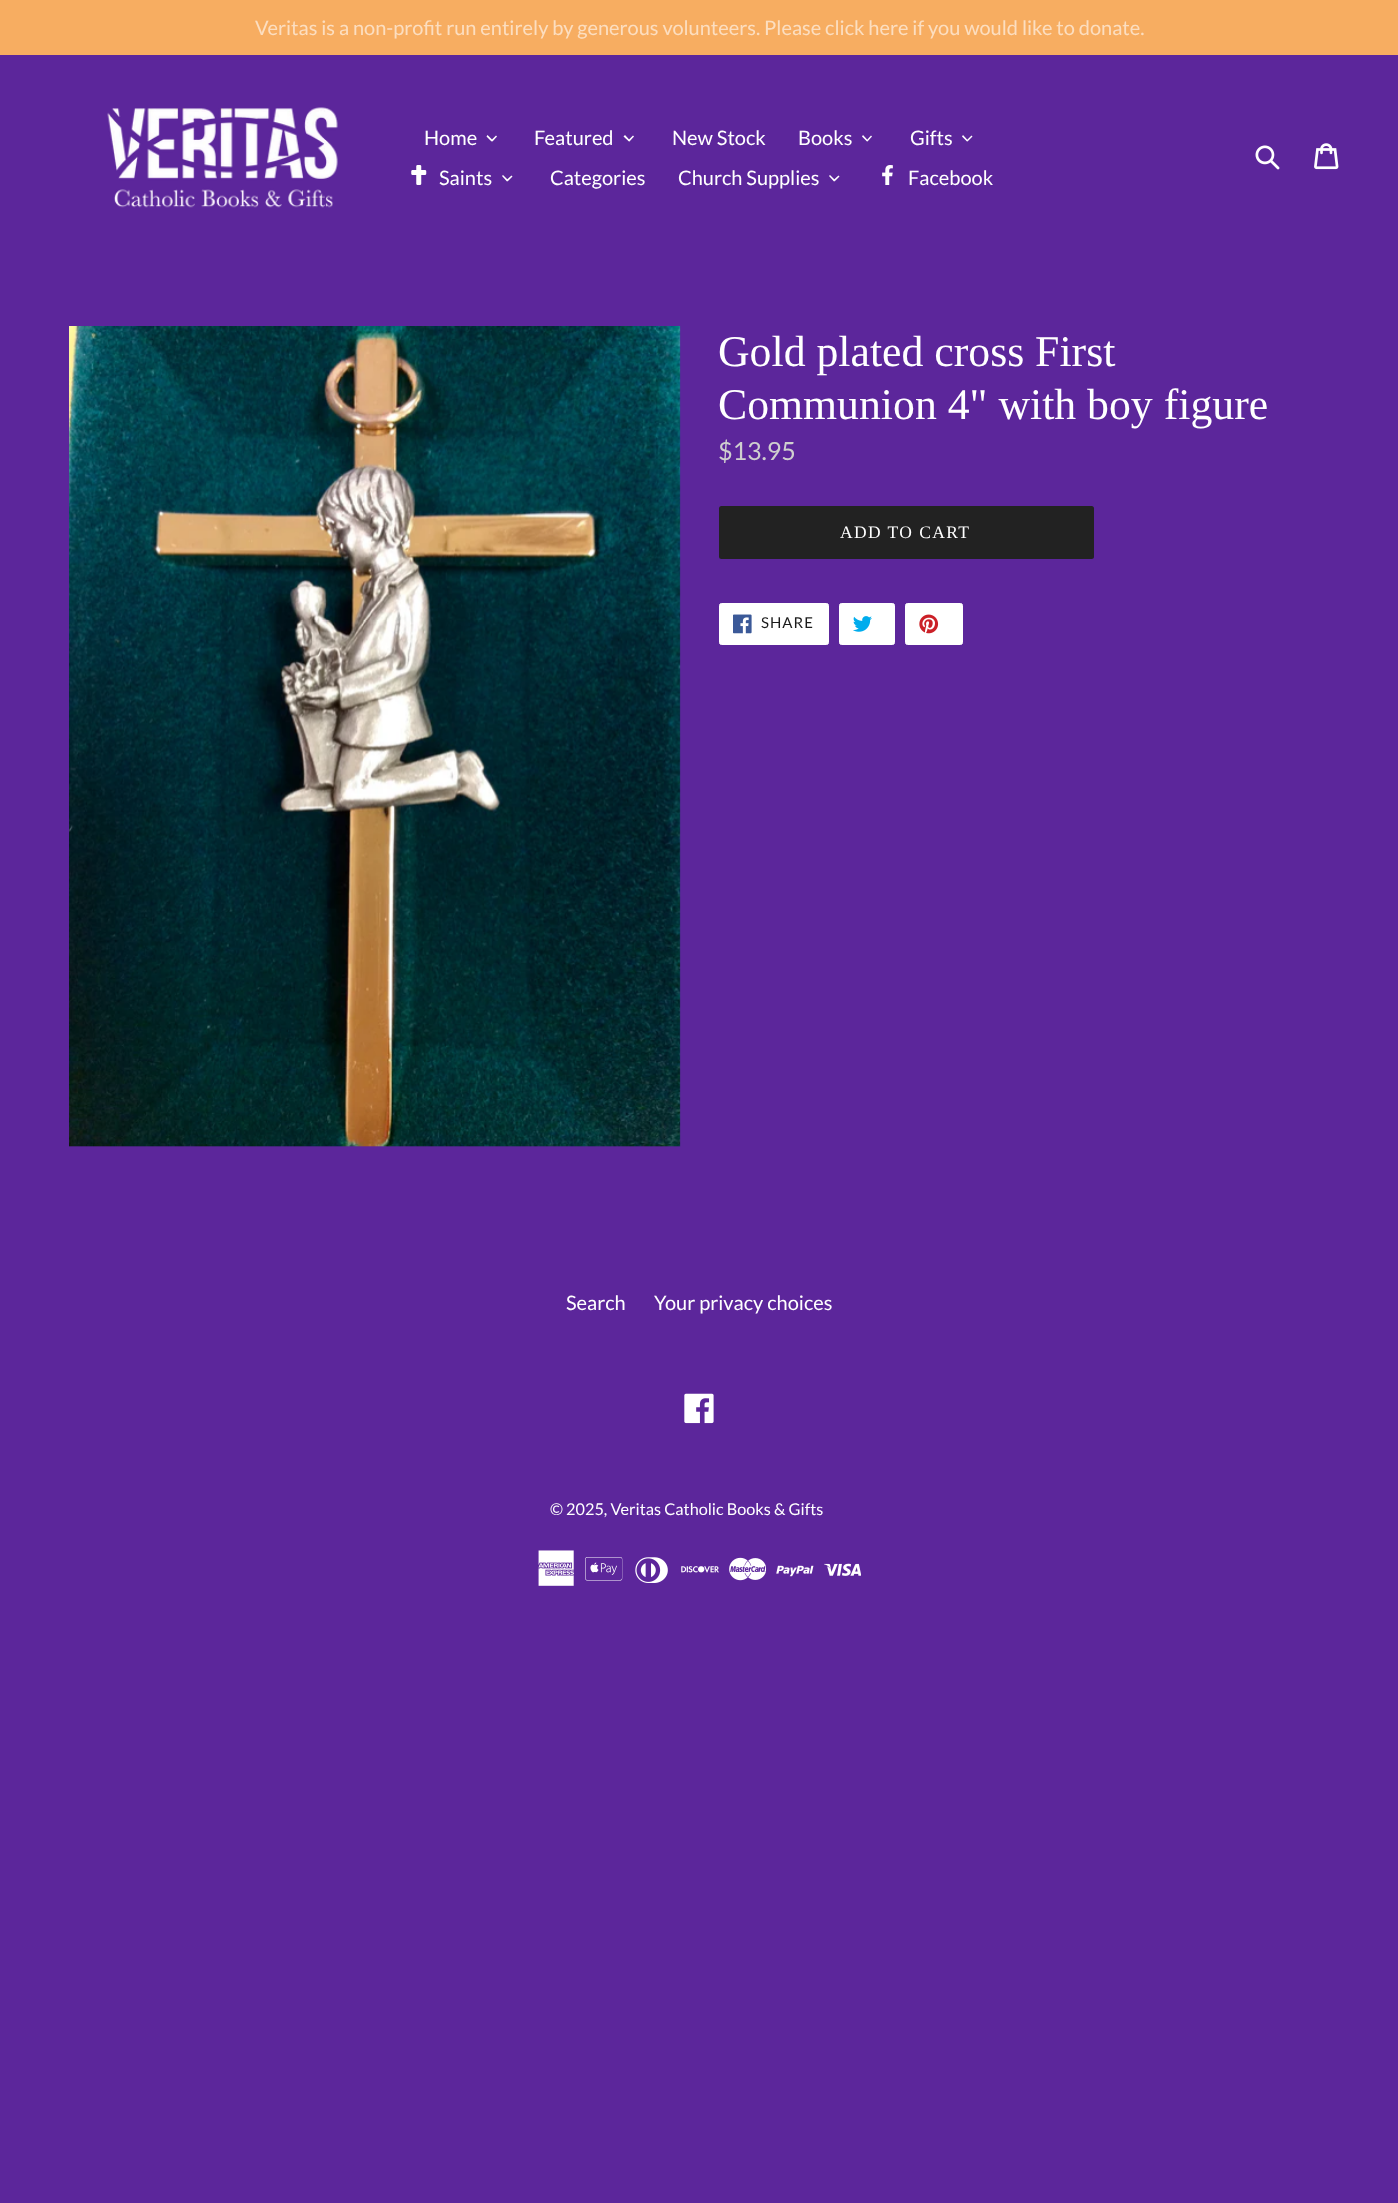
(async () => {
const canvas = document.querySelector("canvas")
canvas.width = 1398
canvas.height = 2203
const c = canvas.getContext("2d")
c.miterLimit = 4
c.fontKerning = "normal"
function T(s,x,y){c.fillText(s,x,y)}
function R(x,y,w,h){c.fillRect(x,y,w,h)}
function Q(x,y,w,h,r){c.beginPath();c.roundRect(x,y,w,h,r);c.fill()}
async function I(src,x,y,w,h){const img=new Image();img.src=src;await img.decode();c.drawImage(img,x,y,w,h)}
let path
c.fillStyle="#5c269b"
R(0,0,1398,2203)
c.fillStyle="#f7ad61"
R(0,0,1398,55)
c.font="20px Lato"
c.fillStyle="#fcdec0"
T("Veritas is a non-profit run entirely by generous volunteers. Please click here if you would like to donate.",255,35)
await I("1.png",107,107,231,101)
c.fillStyle="#fff"
T("Home",424,145)
path = new Path2D("M496 135.5l1 1l-4.5 5l-1.5-1z")
c.fill(path)
path = new Path2D("M487.5 135l5.5 5.5l-1.5 1l-5-5z")
c.fill(path)
T("Featured",534,145)
path = new Path2D("M633 135.5l1 1l-4.5 5l-1.5-1z")
c.fill(path)
path = new Path2D("M625 135l5 5.5l-1 1l-5.5-5z")
c.fill(path)
T("New Stock",672,145)
T("Books",798,145)
path = new Path2D("M871 135.5l1 1l-4.5 5l-1-1z")
c.fill(path)
path = new Path2D("M863 135l5 5.5l-1 1l-5-5z")
c.fill(path)
T("Gifts",910,145)
path = new Path2D("M971.5 135.5l1 1l-5 5l-1-1z")
c.fill(path)
path = new Path2D("M963 135l5 5.5l-1 1l-5-5z")
c.fill(path)
await I("2.png",411,165,16,20)
T("Saints",439,185)
path = new Path2D("M511.5 175.5l1 1l-5 5l-1-1.5z")
c.fill(path)
path = new Path2D("M503 175l5 5l-1 1.5l-5-5.5z")
c.fill(path)
T("Categories",550,185)
T("Church Supplies",678,185)
path = new Path2D("M838.5 175.5l1 1l-5 5l-1-1.5z")
c.fill(path)
path = new Path2D("M830 175l5 5l-1 1.5l-5-5.5z")
c.fill(path)
await I("3.png",882,165,11,20)
T("Facebook",908,185)
await I("4.png",1255,145,25,25)
await I("5.png",1314,143,25,27)
await I("6.png",69,326,612,821)
c.font="43.75px Liberation Serif"
T("Gold plated cross First",718,366)
T("Communion 4\" with boy figure",718,419)
c.font="25px Lato"
c.fillStyle="#cfcfcf"
T("$13.95",718,460)
c.fillStyle="#222"
Q(719,506,375,53,2.5)
c.letterSpacing="1.4px"
c.font="17.5px Liberation Serif"
c.fillStyle="#fff"
T("ADD TO CART",840,538)
c.beginPath()
c.roundRect(719.5,603.5,109,41,2)
c.fill()
c.strokeStyle="#fff"
c.stroke()
await I("7.png",733,614,19,20)
c.letterSpacing="1px"
c.font="15px Lato"
c.fillStyle="#1b1b1b"
T("SHARE",761,628)
c.fillStyle="#fff"
c.beginPath()
c.roundRect(839.5,603.5,55,41,2)
c.fill()
c.stroke()
await I("8.png",853,616,19,16)
c.beginPath()
c.roundRect(905.5,603.5,57,41,2)
c.fill()
c.stroke()
await I("9.png",919,614,20,20)
c.letterSpacing="0px"
c.font="20px Lato"
T("Search",566,1310)
T("Your privacy choices",654,1310)
await I("10.png",684,1393,30,31)
c.font="16.25px Lato"
T("© 2025, Veritas Catholic Books & Gifts",550,1515)
await I("11.png",538,1550,36,36)
await I("12.png",585,1557,38,24)
await I("13.png",635,1557,33,26)
await I("14.png",681,1566,38,7)
await I("15.png",729,1557,37,24)
await I("16.png",776,1565,38,12)
await I("17.png",824,1563,37,13)
})()
